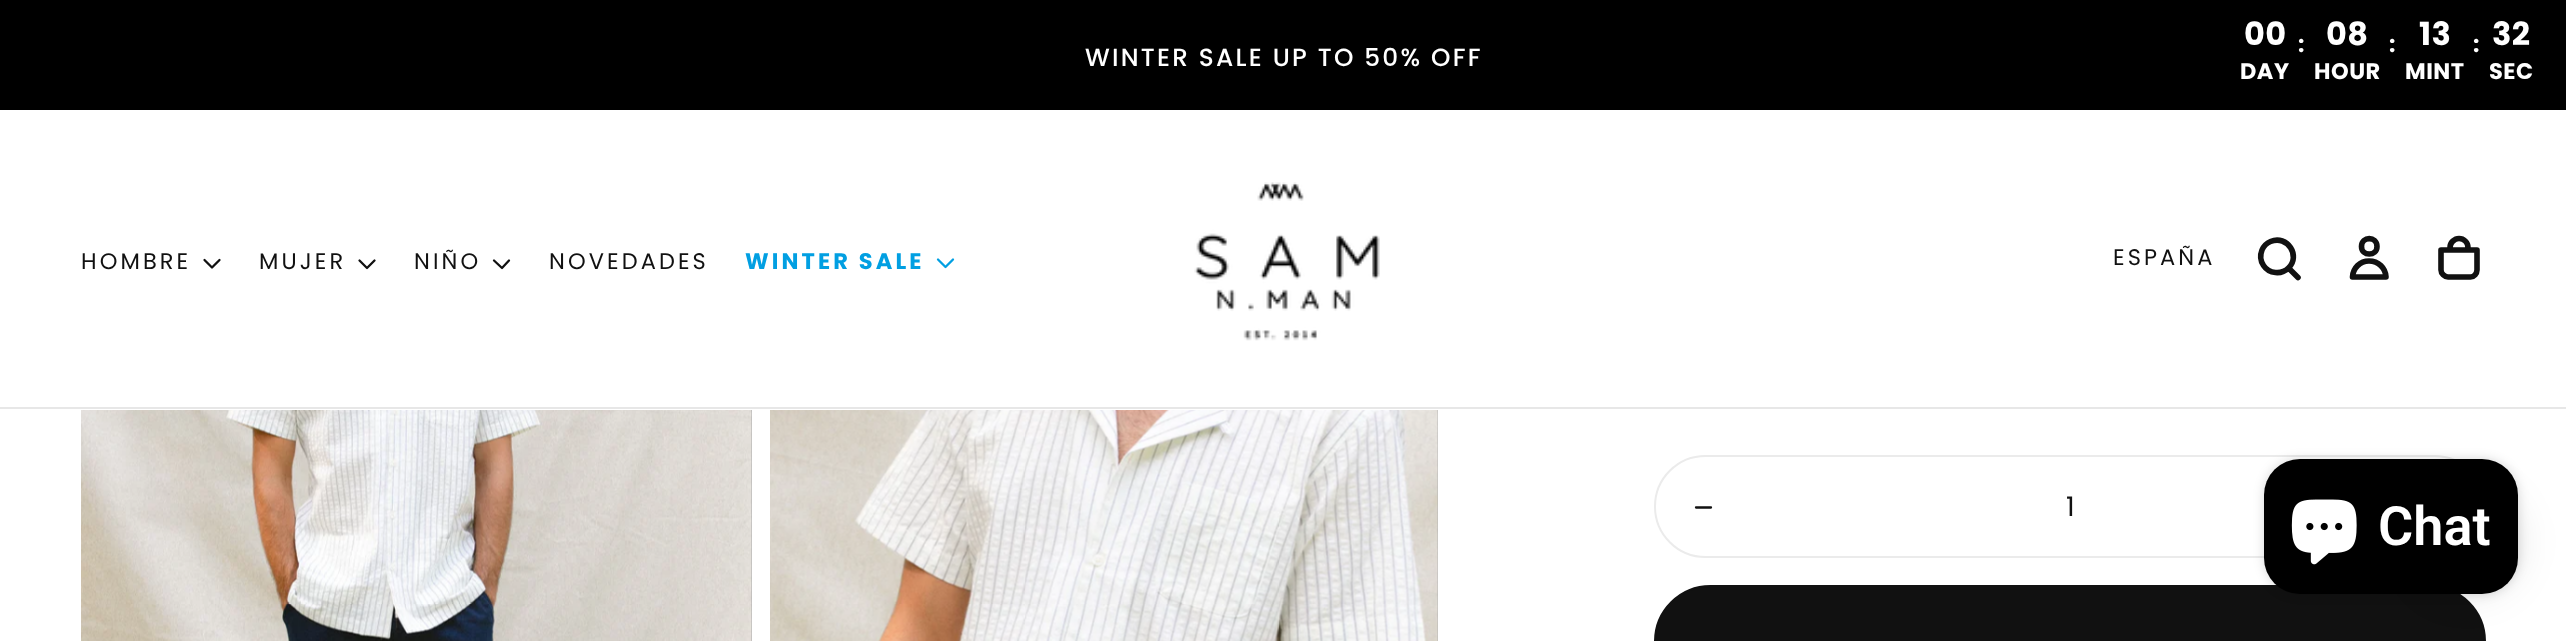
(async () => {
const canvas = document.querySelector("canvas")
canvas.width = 2566
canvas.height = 641
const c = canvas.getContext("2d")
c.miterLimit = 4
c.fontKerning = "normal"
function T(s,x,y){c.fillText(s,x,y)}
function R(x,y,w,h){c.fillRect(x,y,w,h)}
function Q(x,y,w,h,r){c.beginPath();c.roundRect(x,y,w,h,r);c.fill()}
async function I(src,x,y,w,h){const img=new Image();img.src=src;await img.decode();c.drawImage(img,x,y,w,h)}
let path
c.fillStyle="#fff"
R(0,0,2566,641)
c.fillStyle="#000"
R(0,0,2566,110)
c.letterSpacing="2.25px"
c.font="500 24.75px Poppins"
c.fillStyle="#fff"
T("WINTER SALE UP TO 50% OFF",1085,66)
c.letterSpacing="0.5px"
c.font="bold 32px Poppins"
T("00",2244,45)
c.font="bold 22.5px Poppins"
T("DAY",2240,79)
T(":",2298,52)
c.font="bold 32px Poppins"
T("08",2326,45)
c.font="bold 22.5px Poppins"
T("HOUR",2314,79)
T(":",2389,52)
c.font="bold 32px Poppins"
T("13",2419,45)
c.font="bold 22.5px Poppins"
T("MINT",2405,79)
T(":",2473,52)
c.font="bold 32px Poppins"
T("32",2492,45)
c.font="bold 22.5px Poppins"
T("SEC",2489,79)
c.fillStyle="#e7e7e7"
R(0,407,2566,2)
c.letterSpacing="3.1px"
c.font="22.5px Poppins"
c.fillStyle="#111"
T("HOMBRE",81,269)
path = new Path2D("M219.5 260l-7.5 7.5l-7.5-7.5")
c.strokeStyle="#111"
c.lineWidth=2.3
c.lineCap="round"
c.lineJoin="round"
c.stroke(path)
T("MUJER",259,269)
path = new Path2D("M374.5 260.5l-7.5 7.5l-7.5-7.5")
c.stroke(path)
T("NIÑO",414,269)
path = new Path2D("M509 260.5l-7 7.5l-8-7.5")
c.stroke(path)
T("NOVEDADES",549,269)
c.font="bold 22.5px Poppins"
c.fillStyle="#019fe2"
T("WINTER SALE",745,269)
path = new Path2D("M953 259.5l-7.5 7.5l-7.5-7.5")
c.strokeStyle="#019fe2"
c.stroke(path)
await I("1.png",1194,182,186,159)
c.font="22.5px Poppins"
c.fillStyle="#111"
T("ESPAÑA",2113,265)
path = new Path2D("M2298 277.5l-9.5-9.5m0 0c12.5-12-1-33.5-18-26.5c-3.5 1.5-7 5-8.5 8.5c-2 5-1.5 11 1.5 15.5c5.5 8.5 18 9.5 25 2.5z")
c.strokeStyle="#111"
c.lineWidth=5.6
c.stroke(path)
path = new Path2D("M2377 246.5c0 10-15.5 10-15.5 0c0-10.5 15.5-10.5 15.5 0zm-8 14.5c-9 0-16 7-16.5 16h33.5c-.5-9-7.5-16-17-16z")
c.lineCap="butt"
c.stroke(path)
path = new Path2D("M2441 250h36v20c0 3.5-3 7-6.5 7h-22.5c-3.5 0-7-3.5-7-7zm9 0v-2.5c0-5 4.5-9 9-9c5 0 9 4 9 9v2.5")
c.stroke(path)
c.fillStyle="#ababab"
R(751,410,1,231)
await I("2.png",81,410,671,231)
R(1437,410,1,231)
await I("3.png",770,410,668,231)
c.beginPath()
c.roundRect(1655,456,830,101,50.5)
c.strokeStyle="#ebebeb"
c.lineWidth=2
c.lineJoin="miter"
c.stroke()
path = new Path2D("M1696 507.5h15")
c.strokeStyle="#111"
c.lineWidth=2.3
c.lineCap="round"
c.stroke(path)
c.letterSpacing="0px"
c.font="27px Poppins"
c.fillStyle="#111"
T("1",2066,516)
c.beginPath()
c.roundRect(1655,586,830,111,55.5)
c.fill()
c.lineWidth=2
c.stroke()
c.fillStyle="#00000026"
c.filter="blur(22.5px)"
c.beginPath()
c.roundRect(2423,497,90,90,45)
c.fill()
c.filter="none"
c.filter="blur(5.5px)"
c.beginPath()
c.roundRect(2264,459,254,135,36)
c.fill()
c.filter="none"
c.fillStyle="#000"
Q(2264,459,254,135,36)
await I("4.png",2291,499,66,66)
c.font="600 54px Roboto"
c.fillStyle="#fff"
T("Chat",2378,545)
})()
